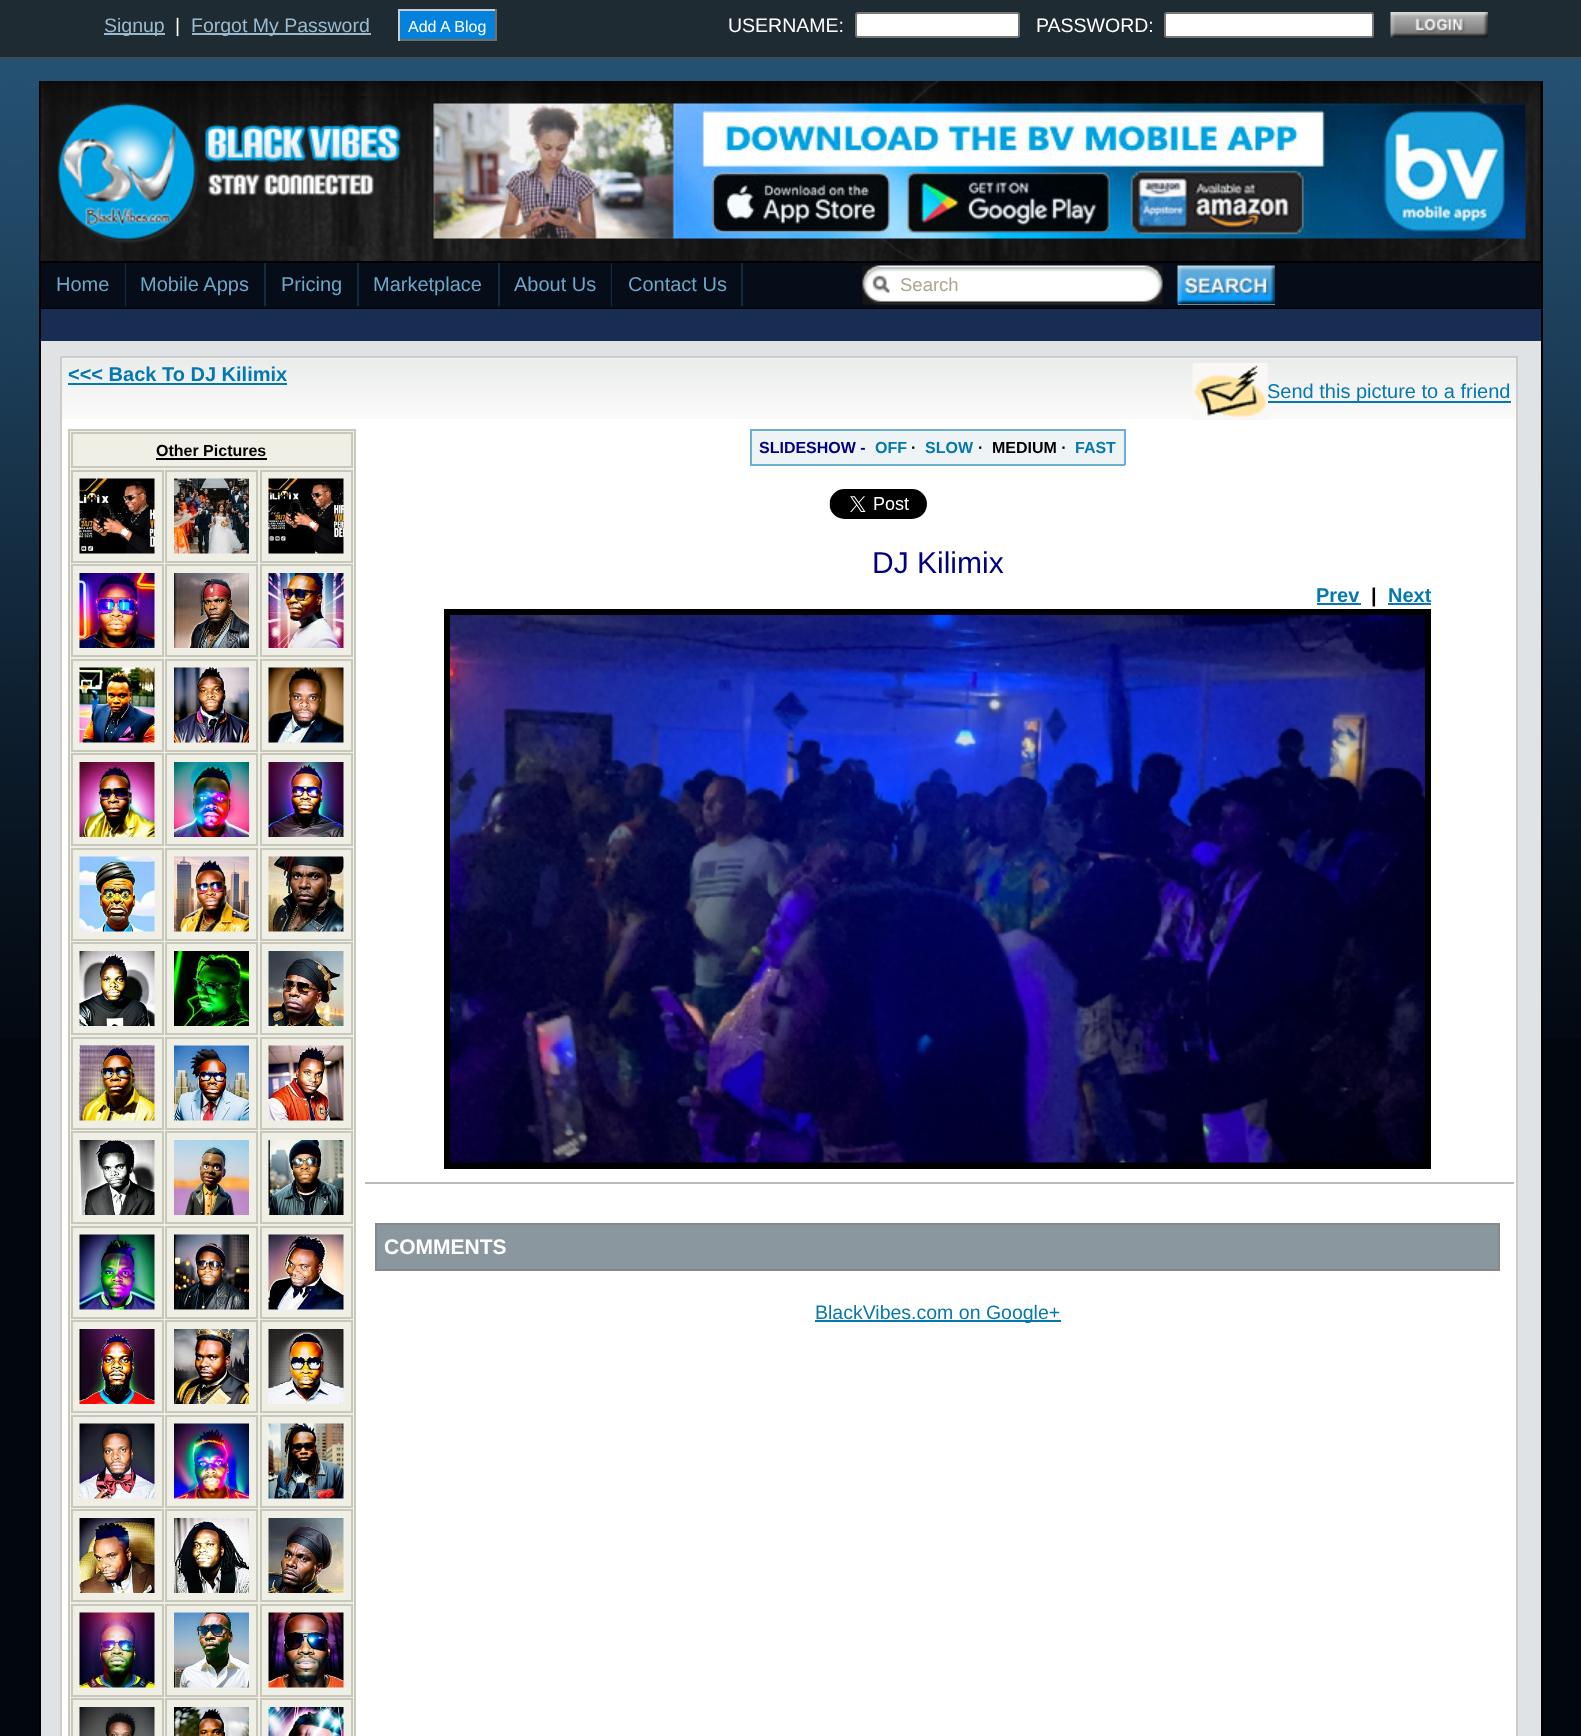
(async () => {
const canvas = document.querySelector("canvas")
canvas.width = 1581
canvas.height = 1736
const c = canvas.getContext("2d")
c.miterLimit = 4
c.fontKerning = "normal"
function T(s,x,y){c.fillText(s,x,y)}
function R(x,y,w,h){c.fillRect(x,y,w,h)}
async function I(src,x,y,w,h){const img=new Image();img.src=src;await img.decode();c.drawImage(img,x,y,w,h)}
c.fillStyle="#02070f"
R(0,0,1581,1736)
await I("1.png",0,59,1581,979)
c.fillStyle="#1f2b33"
R(0,0,1581,57)
c.fillStyle="#3f4950"
R(0,57,1581,2)
c.fillStyle="#9bbace"
R(104,33,61,2)
c.font="19.5px Liberation Sans"
T("Signup",104,32)
c.fillStyle="#fff"
T("|",175,32)
c.fillStyle="#9bbace"
R(192,33,179,2)
T("Forgot My Password",191,32)
c.fillStyle="#0282dd"
R(400,11,95,28)
c.font="16px Liberation Sans"
c.fillStyle="#fff"
T("Add A Blog",408,32)
c.fillStyle="#ccc"
R(398,9,99,2)
c.fillStyle="#716f64"
R(495,9,2,32)
R(398,39,99,2)
c.fillStyle="#ccc"
R(398,9,2,32)
c.font="19.5px Liberation Sans"
c.fillStyle="#fff"
T("USERNAME:",728,32)
c.beginPath()
c.roundRect(856,13,163,24,2)
c.fill()
c.strokeStyle="#767676"
c.lineWidth=2
c.stroke()
T("PASSWORD:",1036,32)
c.beginPath()
c.roundRect(1165,13,208,24,2)
c.fill()
c.stroke()
await I("2.png",1390,12,98,26)
c.fillStyle="#000"
R(1541,81,2,1655)
R(39,81,2,1655)
R(1540,81,1,180)
await I("3.png",40,81,1501,180)
await I("4.png",57,96,373,150)
await I("5.png",433,103,1093,136)
R(41,261,1500,2)
R(41,308,1500,1)
c.fillStyle="#060d18"
R(41,263,1500,45)
c.fillStyle="#122b41"
R(125,263,1,43)
c.font="20px Liberation Sans"
c.fillStyle="#6ca7c7"
T("Home",56,291)
c.fillStyle="#122b41"
R(264,263,2,43)
c.fillStyle="#6ca7c7"
T("Mobile Apps",140,291)
c.fillStyle="#122b41"
R(357,263,2,43)
c.fillStyle="#6ca7c7"
T("Pricing",281,291)
c.fillStyle="#122b41"
R(498,263,2,43)
c.fillStyle="#6ca7c7"
T("Marketplace",373,291)
c.fillStyle="#122b41"
R(611,263,1,43)
c.fillStyle="#6ca7c7"
T("About Us",514,291)
c.fillStyle="#122b41"
R(741,263,2,43)
c.fillStyle="#6ca7c7"
T("Contact Us",628,291)
await I("6.png",862,265,301,40)
c.font="18.5px Liberation Sans"
c.fillStyle="#aea592"
T("Search",900,291)
c.fillStyle="#efefef"
R(1178,304,97,1)
await I("7.png",1177,265,98,40)
c.fillStyle="#172e52"
R(41,309,1500,32)
c.fillStyle="#dfe3e6"
R(41,341,1500,1395)
c.fillStyle="#fff"
R(62,419,1454,1317)
await I("8.png",62,358,1454,61)
c.strokeStyle="#ccc"
c.strokeRect(61,357,1456,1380)
c.font="bold 20px Liberation Sans"
c.fillStyle="#0578ad"
T("<<< Back To DJ Kilimix",68,381)
R(68,383,219,2)
await I("9.png",1192,363,76,57)
R(1268,401,243,2)
c.font="20px Liberation Sans"
T("Send this picture to a friend",1267,398)
c.fillStyle="#f0efe6"
c.beginPath()
c.rect(69,430,286,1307)
c.fill()
c.strokeStyle="#c9c8bc"
c.stroke()
c.strokeRect(72,433,280,34)
c.font="bold 16px Liberation Sans"
c.fillStyle="#000"
T("Other Pictures",156,456)
R(156,458,111,2)
c.strokeRect(72,471,91,91)
await I("10.png",79,478,76,76)
c.strokeRect(166,471,91,91)
await I("11.png",174,478,75,76)
c.strokeRect(261,471,91,91)
await I("12.png",268,478,76,76)
c.strokeRect(72,565,91,91)
await I("13.png",79,573,76,75)
c.strokeRect(166,565,91,91)
await I("14.png",174,573,75,75)
c.strokeRect(261,565,91,91)
await I("15.png",268,573,76,75)
c.strokeRect(72,660,91,91)
await I("16.png",79,667,76,76)
c.strokeRect(166,660,91,91)
await I("17.png",174,667,75,76)
c.strokeRect(261,660,91,91)
await I("18.png",268,667,76,76)
c.strokeRect(72,754,91,91)
await I("19.png",79,762,76,75)
c.strokeRect(166,754,91,91)
await I("20.png",174,762,75,75)
c.strokeRect(261,754,91,91)
await I("21.png",268,762,76,75)
c.strokeRect(72,849,91,91)
await I("22.png",79,856,76,76)
c.strokeRect(166,849,91,91)
await I("23.png",174,856,75,76)
c.strokeRect(261,849,91,91)
await I("24.png",268,856,76,76)
c.strokeRect(72,943,91,91)
await I("25.png",79,951,76,75)
c.strokeRect(166,943,91,91)
await I("26.png",174,951,75,75)
c.strokeRect(261,943,91,91)
await I("27.png",268,951,76,75)
c.strokeRect(72,1038,91,91)
await I("28.png",79,1045,76,76)
c.strokeRect(166,1038,91,91)
await I("29.png",174,1045,75,76)
c.strokeRect(261,1038,91,91)
await I("30.png",268,1045,76,76)
c.strokeRect(72,1132,91,91)
await I("31.png",79,1140,76,75)
c.strokeRect(166,1132,91,91)
await I("32.png",174,1140,75,75)
c.strokeRect(261,1132,91,91)
await I("33.png",268,1140,76,75)
c.strokeRect(72,1227,91,91)
await I("34.png",79,1234,76,76)
c.strokeRect(166,1227,91,91)
await I("35.png",174,1234,75,76)
c.strokeRect(261,1227,91,91)
await I("36.png",268,1234,76,76)
c.strokeRect(72,1321,91,91)
await I("37.png",79,1329,76,75)
c.strokeRect(166,1321,91,91)
await I("38.png",174,1329,75,75)
c.strokeRect(261,1321,91,91)
await I("39.png",268,1329,76,75)
c.strokeRect(72,1416,91,91)
await I("40.png",79,1423,76,76)
c.strokeRect(166,1416,91,91)
await I("41.png",174,1423,75,76)
c.strokeRect(261,1416,91,91)
await I("42.png",268,1423,76,76)
c.strokeRect(72,1510,91,91)
await I("43.png",79,1518,76,75)
c.strokeRect(166,1510,91,91)
await I("44.png",174,1518,75,75)
c.strokeRect(261,1510,91,91)
await I("45.png",268,1518,76,75)
c.strokeRect(72,1605,91,91)
await I("46.png",79,1612,76,76)
c.strokeRect(166,1605,91,91)
await I("47.png",174,1612,75,76)
c.strokeRect(261,1605,91,91)
await I("48.png",268,1612,76,76)
c.strokeRect(72,1699,91,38)
await I("49.png",79,1707,76,29)
c.strokeRect(166,1699,91,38)
await I("50.png",174,1707,75,29)
c.strokeRect(261,1699,91,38)
await I("51.png",268,1707,76,29)
c.fillStyle="#eef3f6"
R(752,431,372,33)
c.fillStyle="#6daed5"
R(750,429,375,2)
R(1124,429,2,36)
R(750,464,375,2)
R(750,429,2,36)
c.fillStyle="#000080"
T("SLIDESHOW -",759,453)
c.fillStyle="#0578ad"
T("OFF",875,453)
c.fillStyle="#000"
T("·",911,453)
c.fillStyle="#0578ad"
T("SLOW",925,453)
c.fillStyle="#000"
T("·",978,453)
T("MEDIUM ·",992,453)
c.fillStyle="#0578ad"
T("FAST",1075,453)
await I("52.png",829,489,98,30)
c.font="30px Liberation Sans"
c.fillStyle="#000080"
T("DJ Kilimix",872,573)
c.font="bold 20px Liberation Sans"
c.fillStyle="#0578ad"
T("Prev",1316,602)
R(1317,603,44,2)
c.fillStyle="#000"
T("|",1371,602)
c.fillStyle="#0578ad"
T("Next",1388,602)
R(1388,603,43,2)
c.fillStyle="#000"
R(444,609,987,560)
await I("53.png",450,615,975,548)
c.fillStyle="#bababa"
R(365,1182,1149,2)
c.fillStyle="#8b979f"
c.beginPath()
c.rect(376,1224,1123,46)
c.fill()
c.strokeStyle="#888"
c.stroke()
c.font="bold 21px Liberation Sans"
c.fillStyle="#fff"
T("COMMENTS",384,1254)
c.fillStyle="#0578ad"
R(815,1320,246,2)
c.font="19.5px Liberation Sans"
T("BlackVibes.com on Google+",815,1319)
})()
